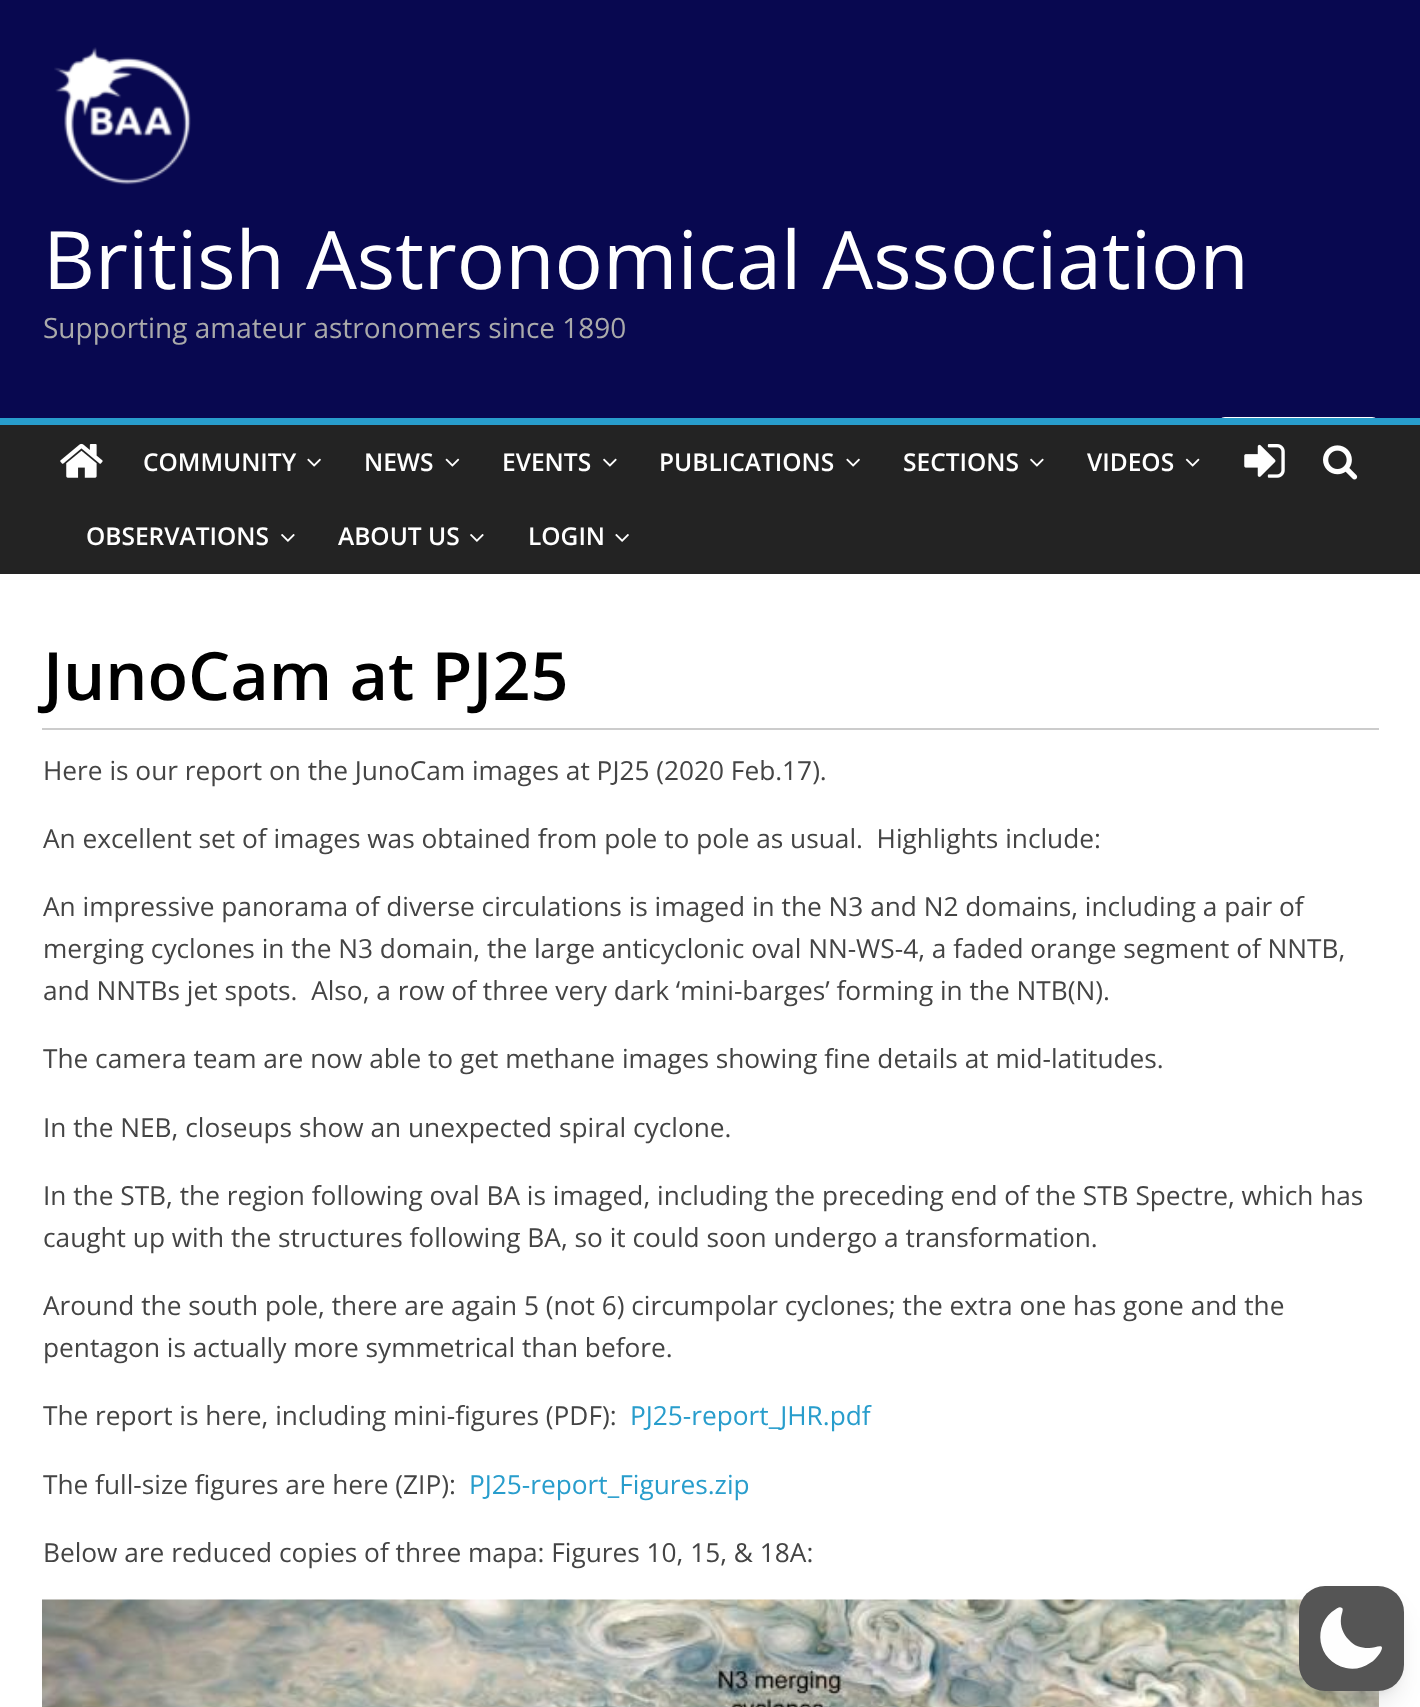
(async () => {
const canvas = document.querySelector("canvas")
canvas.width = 1420
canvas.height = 1707
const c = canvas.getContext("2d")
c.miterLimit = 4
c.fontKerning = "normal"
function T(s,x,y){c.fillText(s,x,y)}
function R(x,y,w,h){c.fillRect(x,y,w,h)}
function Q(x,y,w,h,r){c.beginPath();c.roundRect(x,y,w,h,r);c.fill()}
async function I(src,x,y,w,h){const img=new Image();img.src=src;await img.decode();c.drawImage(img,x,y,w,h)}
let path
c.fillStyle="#080850"
R(0,0,1420,1707)
await I("1.png",54,47,137,138)
c.font="80.5px Open Sans"
c.fillStyle="#fff"
T("British Astronomical Association",43,289)
c.font="28px Open Sans"
c.fillStyle="#aaa"
T("Supporting amateur astronomers since 1890",43,338)
c.fillStyle="#fff"
Q(1218,417,161,59,7)
c.fillStyle="#232323"
R(0,425,1420,149)
c.fillStyle="#289dcc"
R(0,418,1420,7)
await I("2.png",60,443,43,35)
c.font="600 24.5px Open Sans"
c.fillStyle="#fff"
T("COMMUNITY",143,471)
await I("3.png",307,458,14,9)
T("NEWS",364,471)
await I("4.png",445,458,15,9)
T("EVENTS",502,471)
await I("5.png",603,458,14,9)
T("PUBLICATIONS",659,471)
await I("3.png",846,458,14,9)
T("SECTIONS",903,471)
await I("5.png",1030,458,14,9)
T("VIDEOS",1087,471)
await I("6.png",1185,458,15,9)
T("OBSERVATIONS",86,545)
await I("7.png",281,534,14,8)
T("ABOUT US",338,545)
await I("7.png",470,534,14,8)
T("LOGIN",528,545)
await I("8.png",615,534,14,8)
await I("9.png",1244,444,41,34)
await I("10.png",1323,445,35,35)
R(0,574,1420,1133)
c.fillStyle="#ccc"
R(42,728,1337,2)
c.font="600 66.5px Open Sans"
c.fillStyle="#000"
T("JunoCam at PJ25",43,700)
c.font="26.25px Open Sans"
c.fillStyle="#444"
T("Here is our report on the JunoCam images at PJ25 (2020 Feb.17).",43,780)
T("An excellent set of images was obtained from pole to pole as usual.  Highlights include:",43,848)
T("An impressive panorama of diverse circulations is imaged in the N3 and N2 domains, including a pair of",43,916)
T("merging cyclones in the N3 domain, the large anticyclonic oval NN-WS-4, a faded orange segment of NNTB,",43,958)
T("and NNTBs jet spots.  Also, a row of three very dark ‘mini-barges’ forming in the NTB(N).",43,1000)
T("The camera team are now able to get methane images showing fine details at mid-latitudes.",43,1068)
T("In the NEB, closeups show an unexpected spiral cyclone.",43,1137)
T("In the STB, the region following oval BA is imaged, including the preceding end of the STB Spectre, which has",43,1205)
T("caught up with the structures following BA, so it could soon undergo a transformation.",43,1247)
T("Around the south pole, there are again 5 (not 6) circumpolar cyclones; the extra one has gone and the",43,1315)
T("pentagon is actually more symmetrical than before.",43,1357)
T("The report is here, including mini-figures (PDF):",43,1425)
c.fillStyle="#289dcc"
T("PJ25-report_JHR.pdf",630,1425)
c.fillStyle="#444"
T("The full-size figures are here (ZIP):",43,1494)
c.fillStyle="#289dcc"
T("PJ25-report_Figures.zip",469,1494)
c.fillStyle="#444"
T("Below are reduced copies of three mapa: Figures 10, 15, & 18A:",43,1562)
await I("11.png",42,1599,1337,108)
c.fillStyle="#0000001a"
c.filter="blur(5px)"
c.beginPath()
c.roundRect(1306,1600,91,91,19)
c.fill()
c.filter="none"
c.filter="blur(13px)"
c.beginPath()
c.roundRect(1304,1608,94,95,21)
c.fill()
c.filter="none"
c.fillStyle="#555"
Q(1299,1586,105,105,26)
c.fillStyle="#fefefe"
path = new Path2D("M1342 1608c2 1-1 7-1 10c-1 8 2 16 8 22c5 6 12 8 19 8c6 1 19-7 12 5c-3 4-6 8-10 10c-7 5-16 7-24 5c-29-6-35-44-10-59c1-1 4-3 6-1z")
c.fill(path,"evenodd")
})()
